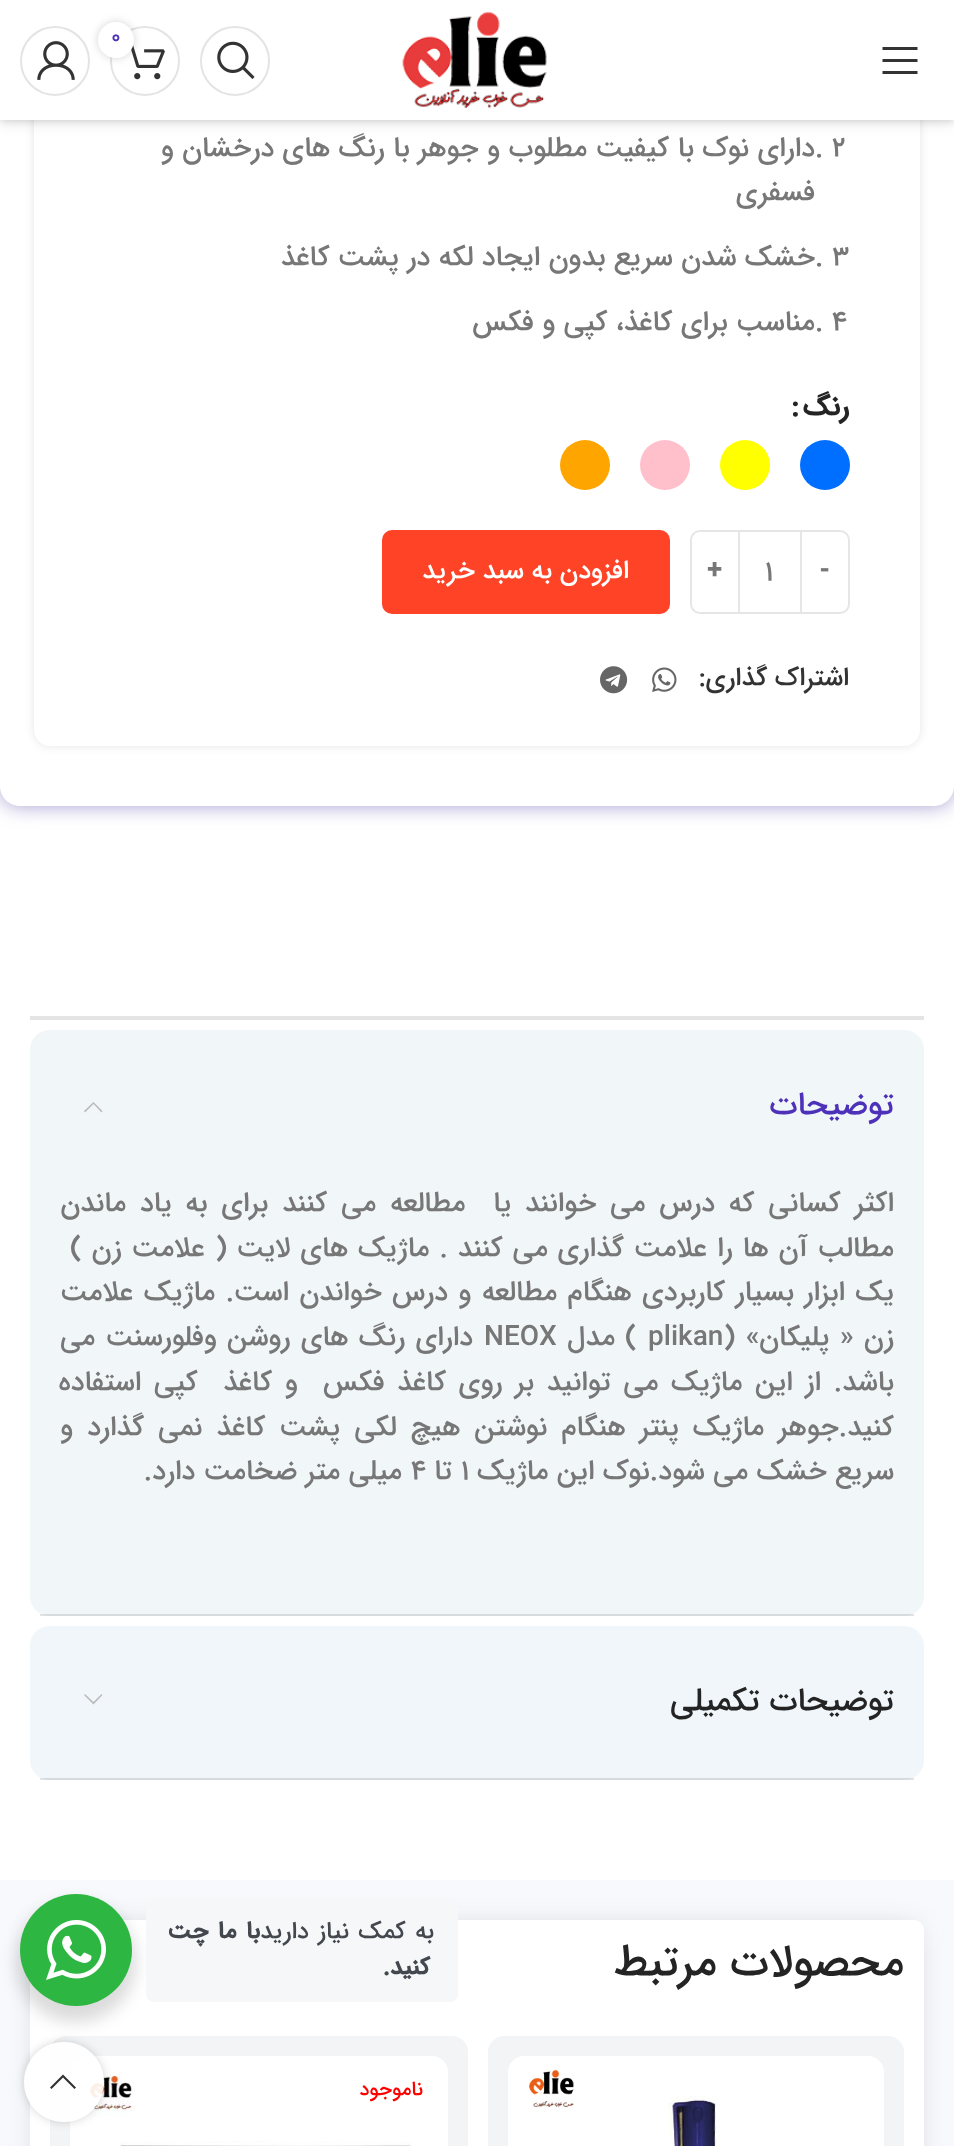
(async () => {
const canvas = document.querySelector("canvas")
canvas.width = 954
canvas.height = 2146
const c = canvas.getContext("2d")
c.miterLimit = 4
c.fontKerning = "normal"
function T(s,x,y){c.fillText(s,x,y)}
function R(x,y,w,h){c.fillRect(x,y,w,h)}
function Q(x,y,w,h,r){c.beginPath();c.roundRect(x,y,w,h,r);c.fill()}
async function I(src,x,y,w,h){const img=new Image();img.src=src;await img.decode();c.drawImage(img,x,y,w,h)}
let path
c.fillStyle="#fff"
R(0,0,954,2146)
c.save()
path = new Path2D("M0 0h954v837h-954zm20-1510h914c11 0 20 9 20 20v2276c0 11-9 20-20 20h-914c-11 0-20-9-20-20v-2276c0-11 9-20 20-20z")
c.clip(path,"evenodd")
c.fillStyle="#7f6ebaad"
c.filter="blur(10px)"
c.beginPath()
c.roundRect(0,-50,954,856,20)
c.fill()
c.filter="none"
c.restore()
c.fillStyle="#0000001a"
c.filter="blur(5px)"
c.beginPath()
c.roundRect(34,-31,886,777,16)
c.fill()
c.filter="none"
c.fillStyle="#fff"
Q(34,-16,886,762,16)
c.fillStyle="#0000001a"
c.filter="blur(3px)"
c.beginPath()
c.rect(0,2,954,120)
c.fill()
c.filter="none"
c.filter="blur(8px)"
c.beginPath()
c.rect(0,2,954,120)
c.fill()
c.filter="none"
c.fillStyle="#fff"
R(0,0,954,120)
await I("1.png",402,12,145,96)
c.beginPath()
c.arc(235,61,34,0,7)
c.strokeStyle="#e4e4e4"
c.lineWidth=2
c.stroke()
await I("2.png",217,41,38,38)
c.beginPath()
c.arc(145,61,34,0,7)
c.stroke()
await I("3.png",131,45,34,35)
c.beginPath()
c.arc(55,61,34,0,7)
c.stroke()
c.fillStyle="#0000002b"
c.filter="blur(4px)"
c.beginPath()
c.roundRect(98,22,36,36,18)
c.fill()
c.filter="none"
c.fillStyle="#fff"
c.beginPath()
c.arc(116,40,18,0,7)
c.fill()
c.font="500 22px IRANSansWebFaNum"
c.fillStyle="#4d31b9"
T("0",111,43)
await I("4.png",37,41,38,39)
c.fillStyle="#333"
path = new Path2D("M882.5 50h35v-3h-35zm0 12h35v-3h-35zm0 12h35v-3h-35z")
c.fill(path)
c.font="500 28px IRANSansWebFaNum"
c.fillStyle="#777"
T(". 2",815,156)
c.direction="rtl"
T("دارای نوک با کیفیت مطلوب و جوهر با رنگ های درخشان و",815,156)
T("فسفری",815,200)
c.direction="ltr"
T(". 3",815,265)
c.direction="rtl"
T("خشک شدن سریع بدون ایجاد لکه در پشت کاغذ",815,265)
c.direction="ltr"
T(". 4",815,330)
c.direction="rtl"
T("مناسب برای کاغذ، کپی و فکس",815,330)
c.font="bold 28px IRANSansWebFaNum"
c.fillStyle="#242424"
T("رنگ",849,415)
c.direction="ltr"
T(":",791,415)
c.fillStyle="#006eff"
c.beginPath()
c.arc(825,465,25,0,7)
c.fill()
c.fillStyle="#ff0"
c.beginPath()
c.arc(745,465,25,0,7)
c.fill()
c.fillStyle="#ffc0cb"
c.beginPath()
c.arc(665,465,25,0,7)
c.fill()
c.fillStyle="#ffa500"
c.beginPath()
c.arc(585,465,25,0,7)
c.fill()
c.beginPath()
c.roundRect(801,531,48,82,[0,9,9,0])
c.strokeStyle="#e6e6e6"
c.stroke()
c.font="bold 26px IRANSansWebFaNum"
c.fillStyle="#777"
T("-",820,578)
c.fillStyle="#e6e6e6"
R(740,530,60,2)
R(740,612,60,2)
c.font="500 28px IRANSansWebFaNum"
c.fillStyle="#777"
T("1",765,580)
c.beginPath()
c.roundRect(691,531,48,82,[9,0,0,9])
c.stroke()
c.font="bold 26px IRANSansWebFaNum"
T("+",707,578)
c.fillStyle="#fe4327"
Q(382,530,288,84,10)
c.direction="rtl"
c.font="500 26px IRANSansWebFaNum"
c.fillStyle="#fff"
T("افزودن به سبد خرید",629,578)
c.fillStyle="#333"
T("اشتراک گذاری:",849,685)
await I("5.png",652,667,25,25)
await I("6.png",600,666,28,28)
c.fillStyle="#e4e4e4"
R(30,1016,894,4)
c.fillStyle="#f1f6f9"
Q(30,1030,894,586,20)
c.fillStyle="#0000001c"
R(40,1614,874,2)
c.font="500 32px IRANSansWebFaNum"
c.fillStyle="#4d31b9"
T("توضیحات",894,1114)
c.fillStyle="#bbb"
path = new Path2D("M85 1112.5l8.5-8.5l8 8.5l1-1.5l-9-9l-9.5 9z")
c.fill(path)
c.wordSpacing="5.5px"
c.font="500 28px IRANSansWebFaNum"
c.fillStyle="#777"
T("اکثر کسانی که درس می خوانند یا  مطالعه می کنند برای به یاد ماندن",894,1211)
c.wordSpacing="1.5px"
T("مطالب آن ها را علامت گذاری می کنند . ماژیک های لایت ( علامت زن )",894,1256)
c.wordSpacing="2px"
T("یک ابزار بسیار کاربردی هنگام مطالعه و درس خواندن است. ماژیک علامت",894,1300)
T("زن « پلیکان» (",894,1345)
c.wordSpacing="0px"
c.direction="ltr"
T("plikan",648,1345)
c.wordSpacing="2px"
c.direction="rtl"
T(") مدل",637,1345)
c.wordSpacing="0px"
c.direction="ltr"
T("NEOX",484,1345)
c.wordSpacing="2px"
c.direction="rtl"
T("دارای رنگ های روشن وفلورسنت می",473,1345)
c.wordSpacing="4.25px"
T("باشد. از این ماژیک می توانید بر روی کاغذ فکس  و کاغذ  کپی استفاده",894,1390)
c.wordSpacing="5.6px"
T("کنید.جوهر ماژیک پنتر هنگام نوشتن هیچ لکی پشت کاغذ نمی گذارد و",894,1435)
c.wordSpacing="0px"
T("سریع خشک می شود.نوک این ماژیک",894,1479)
c.direction="ltr"
T("1",461,1479)
c.direction="rtl"
T("تا",452,1479)
c.direction="ltr"
T("4",411,1479)
c.direction="rtl"
T("میلی متر ضخامت دارد.",402,1479)
c.fillStyle="#f0f6f9"
Q(30,1626,894,154,20)
c.fillStyle="#0000001c"
R(40,1778,874,2)
c.font="500 32px IRANSansWebFaNum"
c.fillStyle="#242424"
T("توضیحات تکمیلی",894,1710)
c.fillStyle="#bbb"
path = new Path2D("M101.5 1694l-8 8l-8.5-8l-1 1l9.5 9.5l9-9.5z")
c.fill(path)
c.fillStyle="#f7f9fc"
R(0,1880,954,266)
c.fillStyle="#21212133"
c.filter="blur(14px)"
c.beginPath()
c.roundRect(38,1928,878,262,2)
c.fill()
c.filter="none"
c.fillStyle="#fff"
Q(30,1920,894,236,10)
c.font="500 44px IRANSansWebFaNum"
c.fillStyle="#242424"
T("محصولات مرتبط",904,1975)
c.fillStyle="#f3f4f6"
Q(488,2036,416,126,16)
await I("7.png",508,2056,376,90)
Q(50,2036,418,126,16)
await I("8.png",70,2056,378,90)
c.font="500 20px IRANSansWebFaNum"
c.fillStyle="#f00"
T("ناموجود",423,2095)
c.save()
path = new Path2D("M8 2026h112v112h-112zm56 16c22 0 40 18 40 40c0 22-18 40-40 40c-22 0-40-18-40-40c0-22 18-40 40-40z")
c.clip(path,"evenodd")
c.fillStyle="#0000002b"
c.filter="blur(5px)"
c.beginPath()
c.roundRect(24,2042,80,80,40)
c.fill()
c.filter="none"
c.restore()
c.fillStyle="#ffffffe6"
c.beginPath()
c.arc(64,2082,40,0,7)
c.fill()
c.fillStyle="#00000024"
c.filter="blur(8px)"
c.beginPath()
c.roundRect(16,1902,120,120,60)
c.fill()
c.filter="none"
c.fillStyle="#f5f7f9"
Q(146,1898,312,104,8)
c.letterSpacing="-0.75px"
c.wordSpacing="3px"
c.font="500 24px IRANSansWebFaNum"
c.fillStyle="#43474e"
T("به کمک نیاز دارید",434,1938)
c.font="bold 24px IRANSansWebFaNum"
T("با ما چت",260,1938)
c.wordSpacing="0px"
T("کنید.",430,1974)
c.fillStyle="#2db742"
c.beginPath()
c.arc(76,1950,56,0,7)
c.fill()
await I("9.png",46,1920,60,60)
c.fillStyle="#333"
path = new Path2D("M74.5 2089l1.5-1.5l-13-13l-13 13l1.5 1.5l11.5-11.5z")
c.fill(path)
})()
